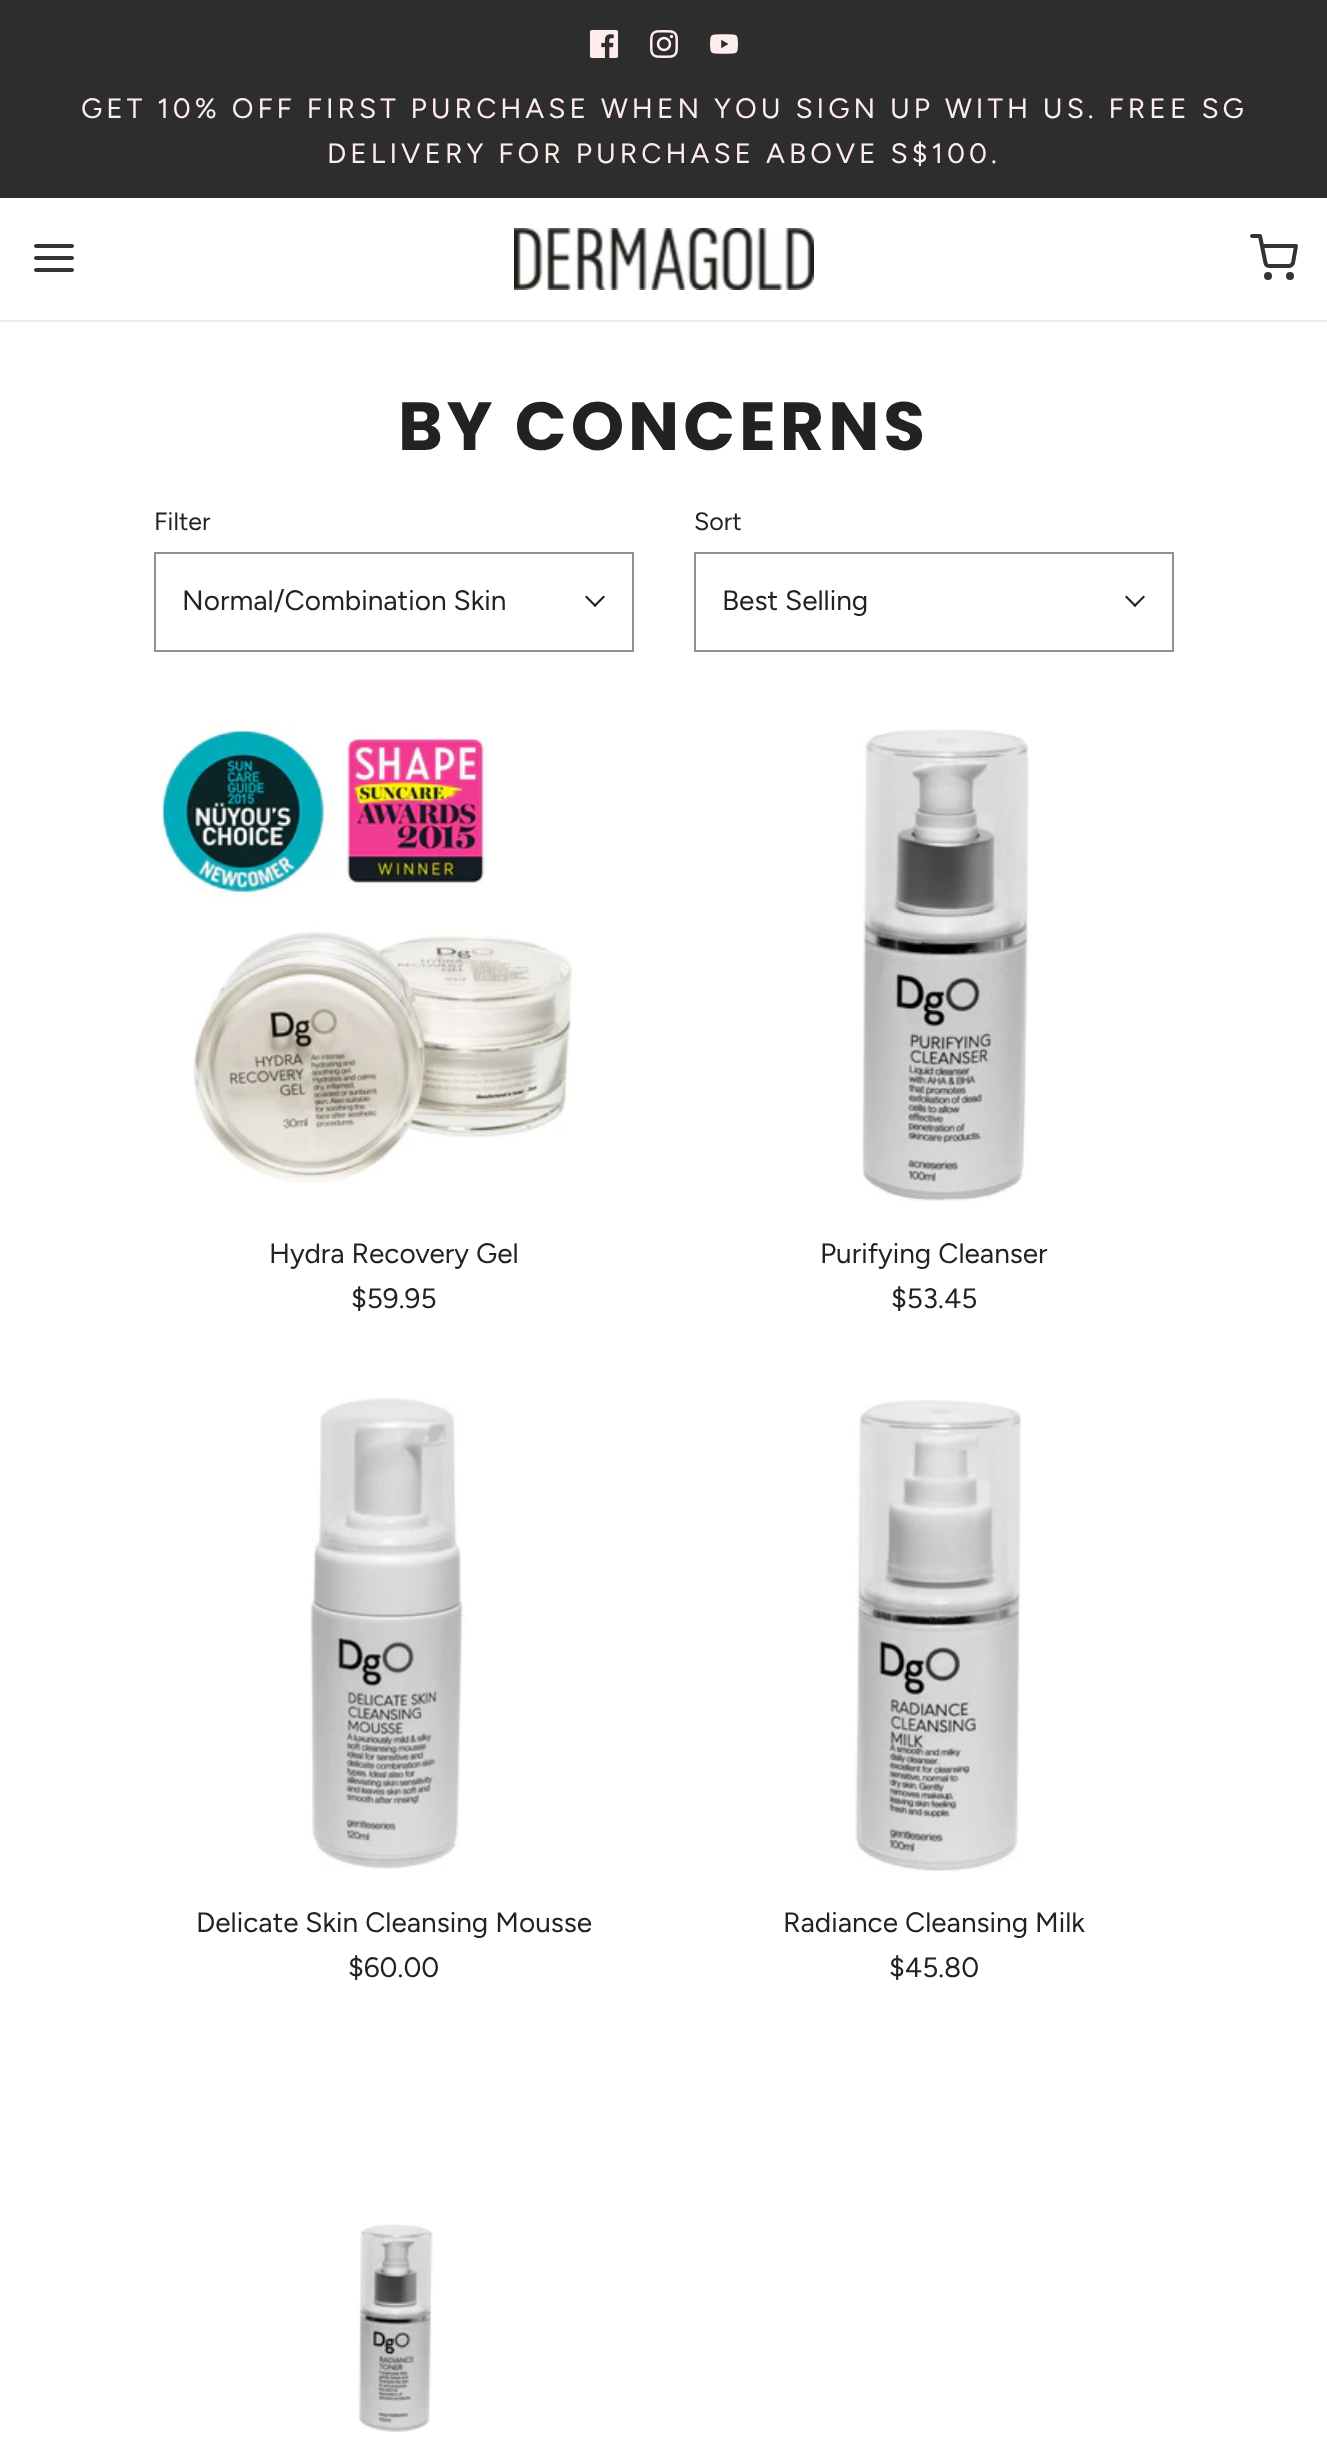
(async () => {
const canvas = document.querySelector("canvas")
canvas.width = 1327
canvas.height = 2462
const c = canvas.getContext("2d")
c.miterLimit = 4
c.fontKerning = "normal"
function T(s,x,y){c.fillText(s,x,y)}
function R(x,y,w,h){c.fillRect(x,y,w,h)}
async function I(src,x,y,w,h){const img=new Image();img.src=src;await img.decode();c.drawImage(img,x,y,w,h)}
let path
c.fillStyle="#fff"
R(0,0,1327,2462)
c.fillStyle="#2d2d2d"
R(0,0,1327,198)
await I("1.png",590,30,28,28)
await I("2.png",650,30,28,28)
await I("3.png",710,34,28,20)
c.letterSpacing="4px"
c.font="28px Figtree"
c.fillStyle="#ffecec"
T("GET 10% OFF FIRST PURCHASE WHEN YOU SIGN UP WITH US. FREE SG",81,118)
T("DELIVERY FOR PURCHASE ABOVE S$100.",327,163)
c.fillStyle="#ebebeb"
R(0,320,1327,2)
path = new Path2D("M36 258h36m-36-12h36m-36 24h36")
c.strokeStyle="#333"
c.lineWidth=4
c.lineCap="round"
c.lineJoin="round"
c.stroke(path)
await I("4.png",514,228,300,62)
path = new Path2D("M1252 236h8l5.5 27c0 1.5 2 3 4 3h19.5c1.5 0 3.5-1.5 4-3l3-17h-34")
c.stroke(path)
c.beginPath()
c.arc(1268,276,2,0,7)
c.stroke()
c.beginPath()
c.arc(1290,276,2,0,7)
c.stroke()
c.font="bold 68px Poppins"
c.fillStyle="#222"
T("BY CONCERNS",398,450)
c.letterSpacing="0px"
c.font="25px Figtree"
T("Filter",154,530)
c.strokeStyle="#919191"
c.lineWidth=2
c.lineJoin="miter"
c.strokeRect(155,553,478,98)
c.font="28px Figtree"
T("Normal/Combination Skin",182,610)
path = new Path2D("M603.5 595.5l1.5 1.5l-10 10l-1.5-1.5z")
c.fill(path)
path = new Path2D("M586.5 595.5l10 10l-1.5 1.5l-10-10z")
c.fill(path)
c.font="25px Figtree"
T("Sort",694,530)
c.strokeRect(695,553,478,98)
c.font="28px Figtree"
T("Best Selling",722,610)
path = new Path2D("M1143.5 595.5l1.5 1.5l-10 10l-1.5-1.5z")
c.fill(path)
path = new Path2D("M1126.5 595.5l10 10l-1.5 1.5l-10-10z")
c.fill(path)
await I("5.png",160,722,416,461)
T("Hydra Recovery Gel",269,1263)
T("$59.95",351,1308)
await I("6.png",862,729,167,473)
T("Purifying Cleanser",820,1263)
T("$53.45",891,1308)
await I("7.png",310,1398,157,471)
T("Delicate Skin Cleansing Mousse",196,1932)
T("$60.00",348,1977)
await I("8.png",855,1400,166,472)
T("Radiance Cleansing Milk",783,1932)
T("$45.80",889,1977)
await I("9.png",358,2224,75,208)
})()
